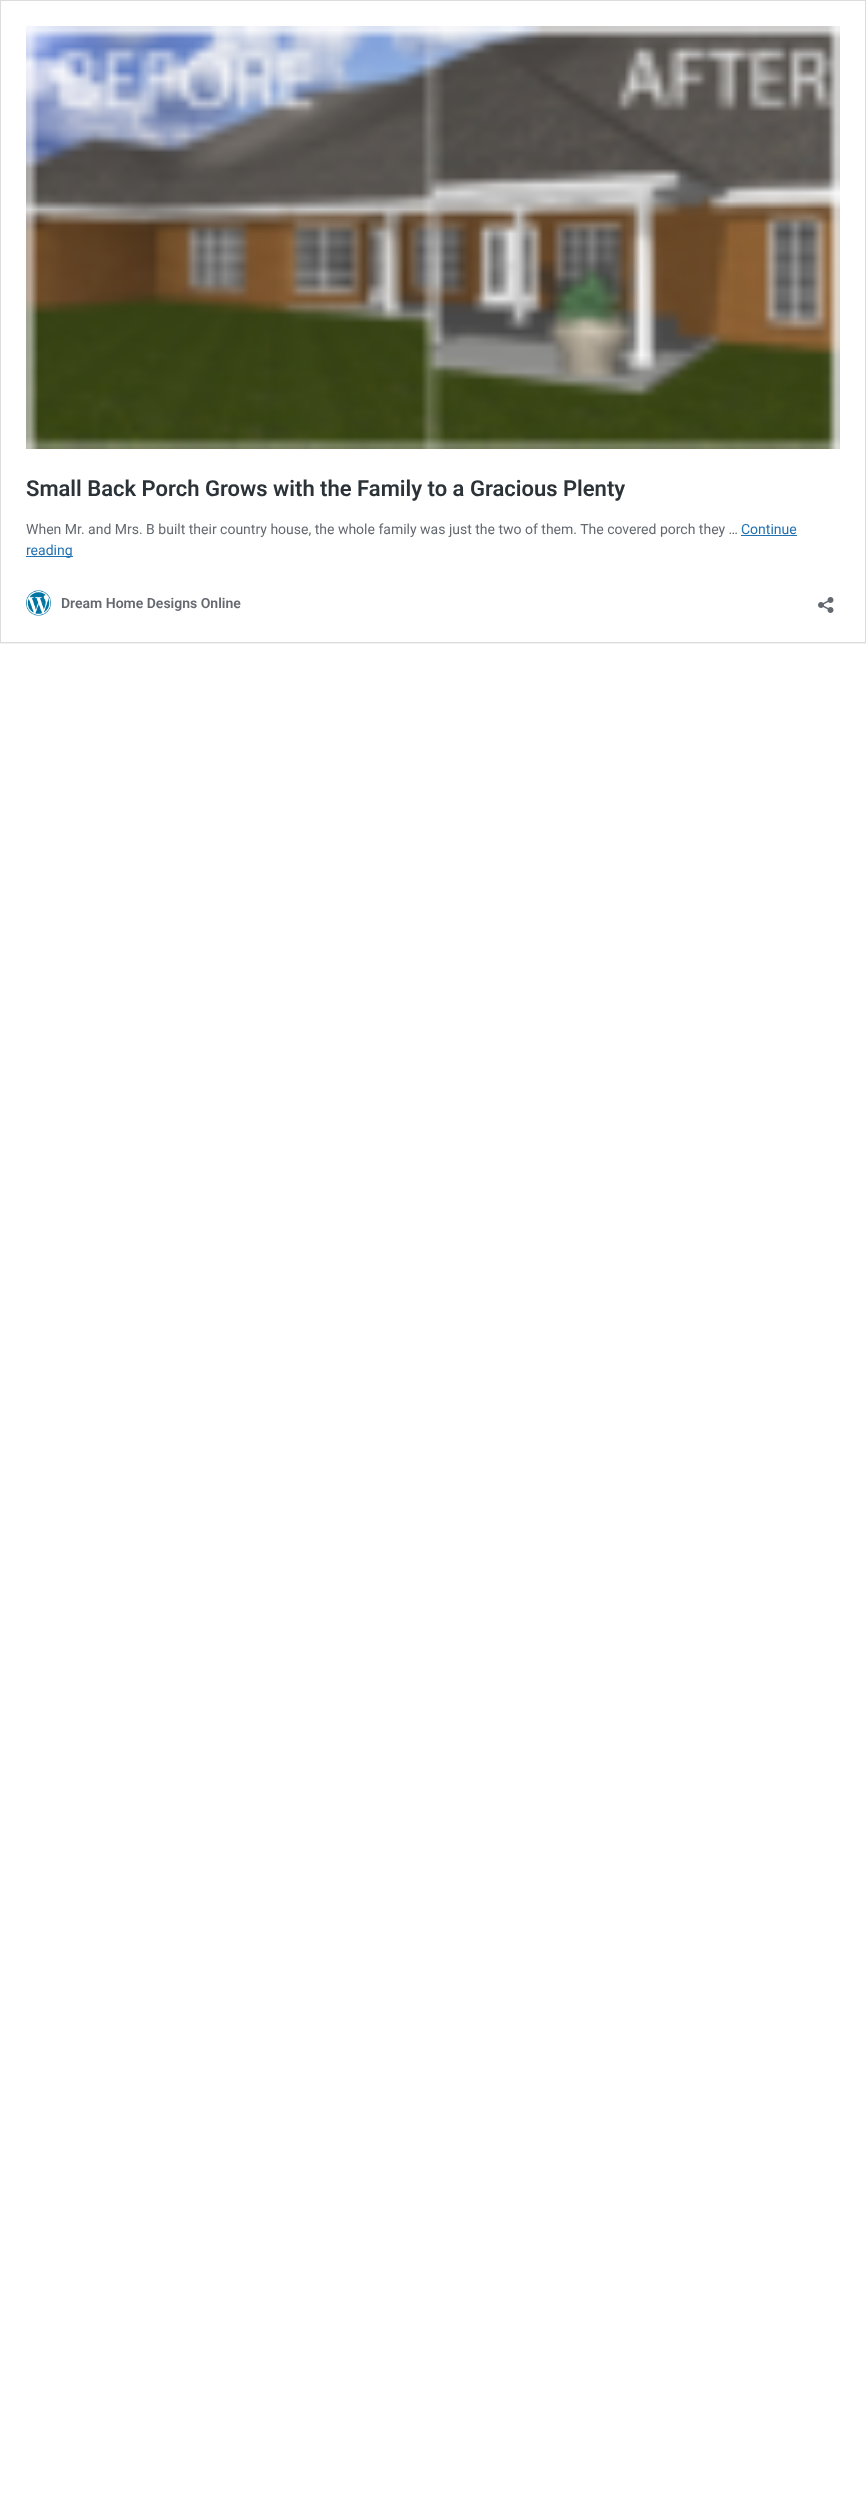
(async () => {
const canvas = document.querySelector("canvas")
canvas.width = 866
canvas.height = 2512
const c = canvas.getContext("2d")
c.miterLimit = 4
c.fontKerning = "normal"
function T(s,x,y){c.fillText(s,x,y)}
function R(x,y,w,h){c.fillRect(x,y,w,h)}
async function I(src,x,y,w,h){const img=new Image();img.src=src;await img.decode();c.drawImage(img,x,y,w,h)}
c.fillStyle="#fff"
R(0,0,866,2512)
c.save()
c.beginPath()
c.rect(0,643,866,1)
c.clip()
c.fillStyle="#0000000d"
c.filter="blur(0.5px)"
c.beginPath()
c.rect(0,1,866,643)
c.fill()
c.filter="none"
c.restore()
c.strokeStyle="#dcdcde"
c.strokeRect(.5,.5,865,642)
await I("1.png",26,26,814,423)
c.font="600 22px Roboto"
c.fillStyle="#2c3338"
T("Small Back Porch Grows with the Family to a Gracious Plenty",26,496)
c.font="14px Roboto"
c.fillStyle="#646970"
T("When Mr. and Mrs. B built their country house, the whole family was just the two of them. The covered porch they …",26,534)
c.fillStyle="#2271b1"
T("Continue",741,534)
R(741,535,56,1)
R(26,556,47,1)
T("reading",26,555)
await I("2.png",26,590,25,26)
c.font="600 14px Roboto"
c.fillStyle="#646970"
T("Dream Home Designs Online",61,608)
await I("3.png",818,597,16,16)
})()
